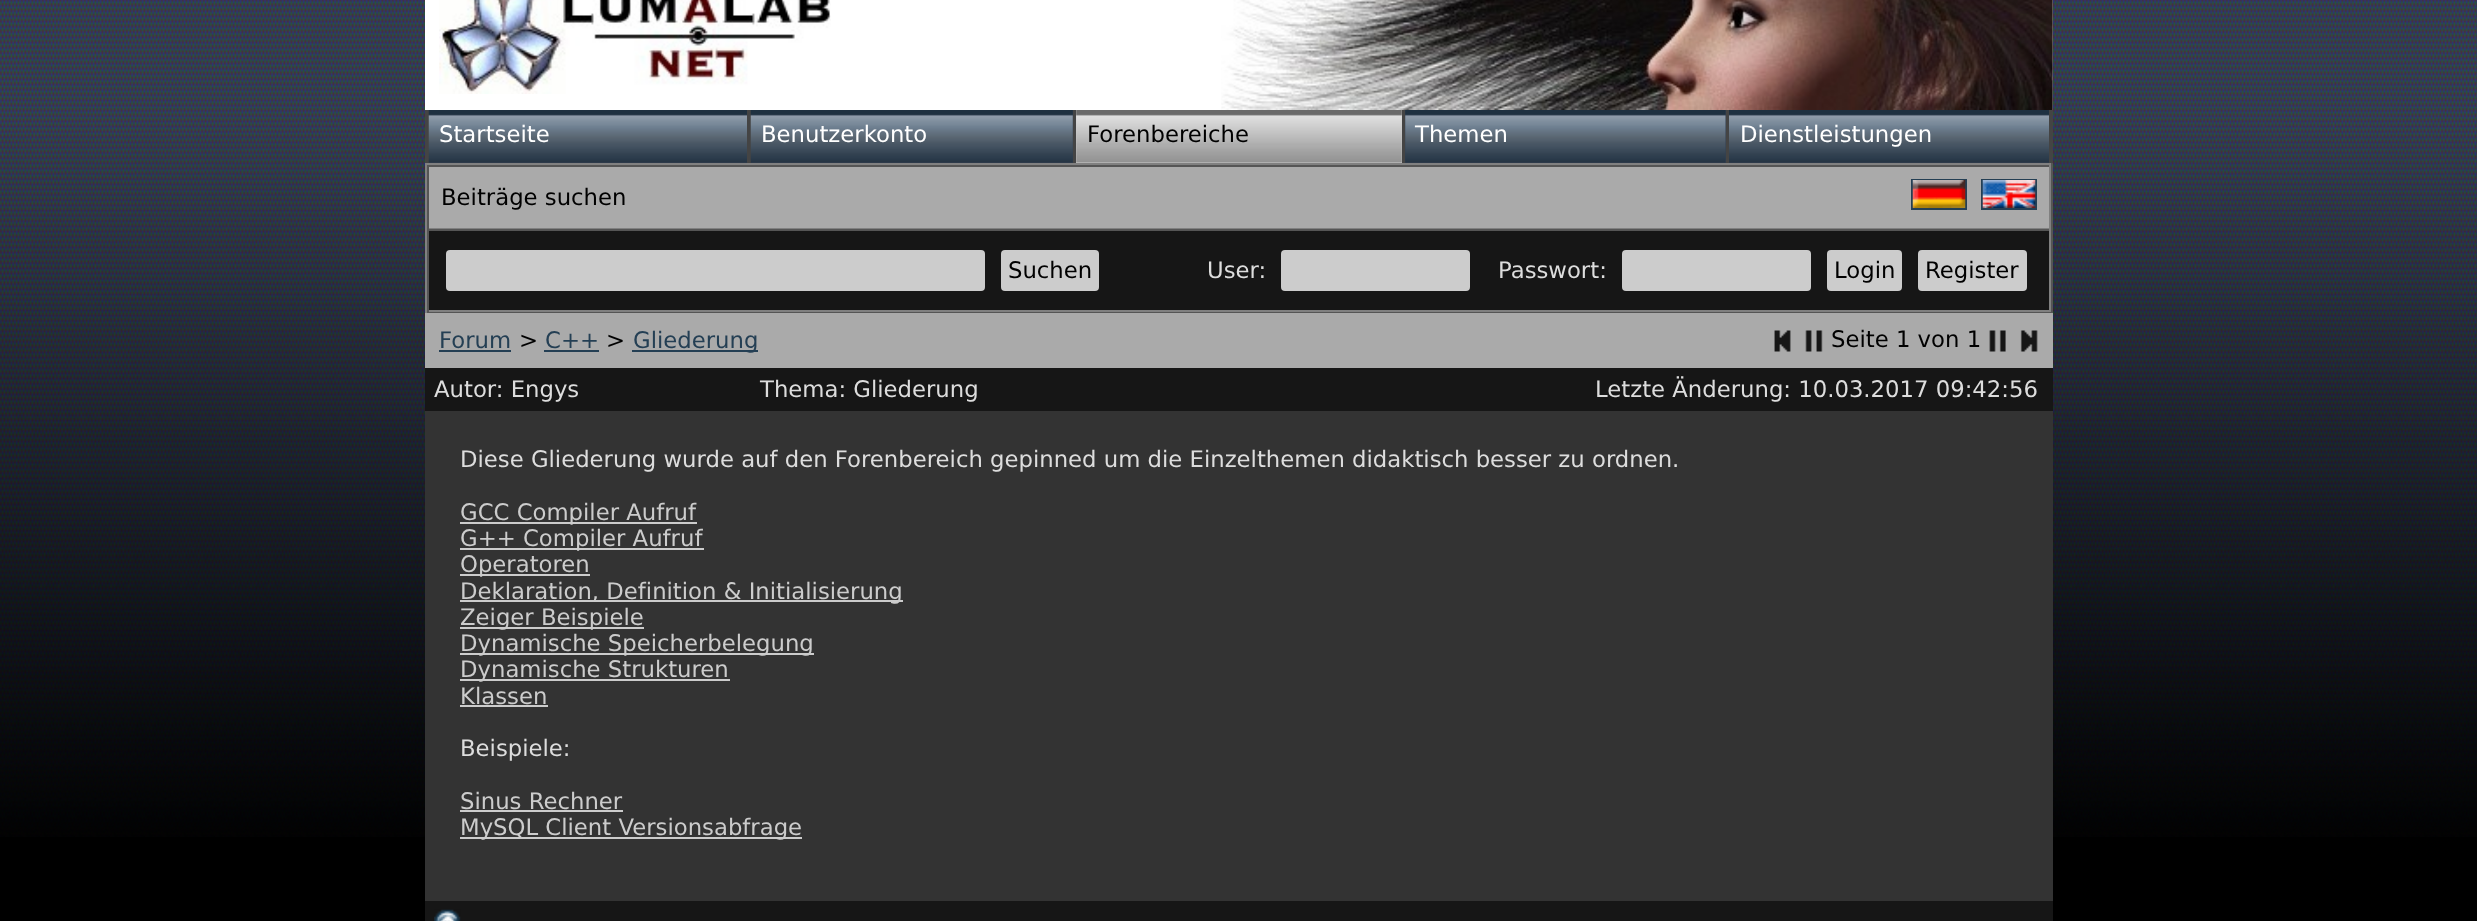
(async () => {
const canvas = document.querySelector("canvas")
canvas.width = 2477
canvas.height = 921
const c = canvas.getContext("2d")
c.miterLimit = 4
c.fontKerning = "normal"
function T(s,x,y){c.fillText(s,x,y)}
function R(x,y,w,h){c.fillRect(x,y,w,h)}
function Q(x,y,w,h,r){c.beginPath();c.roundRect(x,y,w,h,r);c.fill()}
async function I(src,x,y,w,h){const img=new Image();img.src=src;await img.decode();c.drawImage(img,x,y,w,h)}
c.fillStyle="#000"
R(0,0,2477,921)
await I("1.png",0,0,2477,837)
c.fillStyle="#fff"
R(425,0,1628,110)
await I("2.png",439,0,392,94)
await I("3.png",1221,0,832,110)
c.fillStyle="#444"
R(425,110,4,53)
c.fillStyle="#354050"
R(429,162,318,1)
await I("4.png",428,110,319,53)
c.font="22.75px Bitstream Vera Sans"
c.fillStyle="#fff"
T("Startseite",439,142)
c.fillStyle="#444"
R(747,110,4,53)
c.fillStyle="#354050"
R(751,110,322,53)
await I("5.png",750,110,323,53)
c.fillStyle="#fff"
T("Benutzerkonto",761,142)
c.fillStyle="#444"
R(1073,110,3,53)
c.fillStyle="#ccc"
R(1076,110,326,53)
await I("6.png",1076,110,326,53)
c.fillStyle="#000"
T("Forenbereiche",1087,142)
c.fillStyle="#444"
R(1402,110,3,53)
c.fillStyle="#354050"
R(1405,110,321,53)
await I("7.png",1405,110,321,53)
c.fillStyle="#fff"
T("Themen",1415,142)
c.fillStyle="#444"
R(1726,110,3,53)
c.fillStyle="#354050"
R(1729,162,320,1)
await I("8.png",1729,110,320,53)
c.fillStyle="#fff"
T("Dienstleistungen",1740,142)
c.fillStyle="#444"
R(2049,110,4,53)
c.fillStyle="#808080"
R(425,163,1628,2)
c.fillStyle="#555"
R(2051,163,2,150)
R(425,312,1628,1)
c.fillStyle="#808080"
R(425,163,2,150)
c.fillStyle="#aaa"
R(429,167,1620,61)
c.fillStyle="#555"
R(427,165,1624,2)
c.fillStyle="#808080"
R(2049,165,2,64)
R(427,228,1624,1)
c.fillStyle="#555"
R(427,165,2,64)
c.fillStyle="#000"
T("Beiträge suchen",441,205)
c.strokeStyle="#243f54"
c.lineWidth=2
c.strokeRect(1912,180,54,29)
c.strokeRect(1982,180,54,29)
await I("9.png",1912,180,54,28)
await I("10.png",1982,180,54,28)
c.fillStyle="#555"
R(427,229,1624,2)
c.fillStyle="#808080"
R(2049,229,2,83)
R(427,310,1624,2)
c.fillStyle="#555"
R(427,229,2,83)
c.fillStyle="#161616"
R(429,231,1620,79)
c.fillStyle="#ccc"
Q(446,250,539,41,4)
Q(1001,250,98,41,4)
c.fillStyle="#000"
T("Suchen",1008,278)
c.fillStyle="#ddd"
T("User:",1207,278)
c.fillStyle="#ccc"
Q(1281,250,189,41,4)
c.fillStyle="#ddd"
T("Passwort:",1498,278)
c.fillStyle="#ccc"
Q(1622,250,189,41,4)
Q(1827,250,75,41,4)
c.fillStyle="#000"
T("Login",1834,278)
c.fillStyle="#ccc"
Q(1918,250,109,41,4)
c.fillStyle="#000"
T("Register",1925,278)
c.fillStyle="#aaa"
R(425,313,1628,55)
c.fillStyle="#243f54"
T("Forum",439,348)
R(439,350,72,2)
c.fillStyle="#000"
T(">",519,348)
c.fillStyle="#243f54"
T("C++",545,348)
R(544,350,55,2)
c.fillStyle="#000"
T(">",606,348)
c.fillStyle="#243f54"
R(632,350,126,2)
T("Gliederung",633,348)
await I("11.png",1774,330,17,22)
await I("12.png",1805,330,18,22)
c.fillStyle="#000"
T("Seite 1 von 1",1831,347)
await I("13.png",1989,330,17,22)
await I("14.png",2020,330,18,22)
c.fillStyle="#161616"
R(425,368,1628,43)
c.fillStyle="#ddd"
T("Autor: Engys",434,397)
T("Thema: Gliederung",760,397)
T("Letzte Änderung: 10.03.2017 09:42:56",1595,397)
c.fillStyle="#333"
R(425,411,1628,490)
c.fillStyle="#ddd"
T("Diese Gliederung wurde auf den Forenbereich gepinned um die Einzelthemen didaktisch besser zu ordnen.",460,467)
c.fillStyle="#ccc"
R(460,522,237,2)
T("GCC Compiler Aufruf",460,520)
R(460,548,244,2)
T("G++ Compiler Aufruf",460,546)
R(460,574,130,2)
T("Operatoren",460,572)
R(460,600,443,2)
T("Deklaration, Definition & Initialisierung",460,599)
R(460,627,184,2)
T("Zeiger Beispiele",460,625)
R(460,653,354,2)
T("Dynamische Speicherbelegung",460,651)
R(460,679,270,2)
T("Dynamische Strukturen",460,677)
T("Klassen",460,704)
R(460,705,88,2)
c.fillStyle="#ddd"
T("Beispiele:",460,756)
c.fillStyle="#ccc"
T("Sinus Rechner",460,809)
R(460,810,163,2)
R(460,837,342,2)
T("MySQL Client Versionsabfrage",460,835)
c.fillStyle="#161616"
R(425,901,1628,20)
await I("15.png",434,909,27,12)
})()
